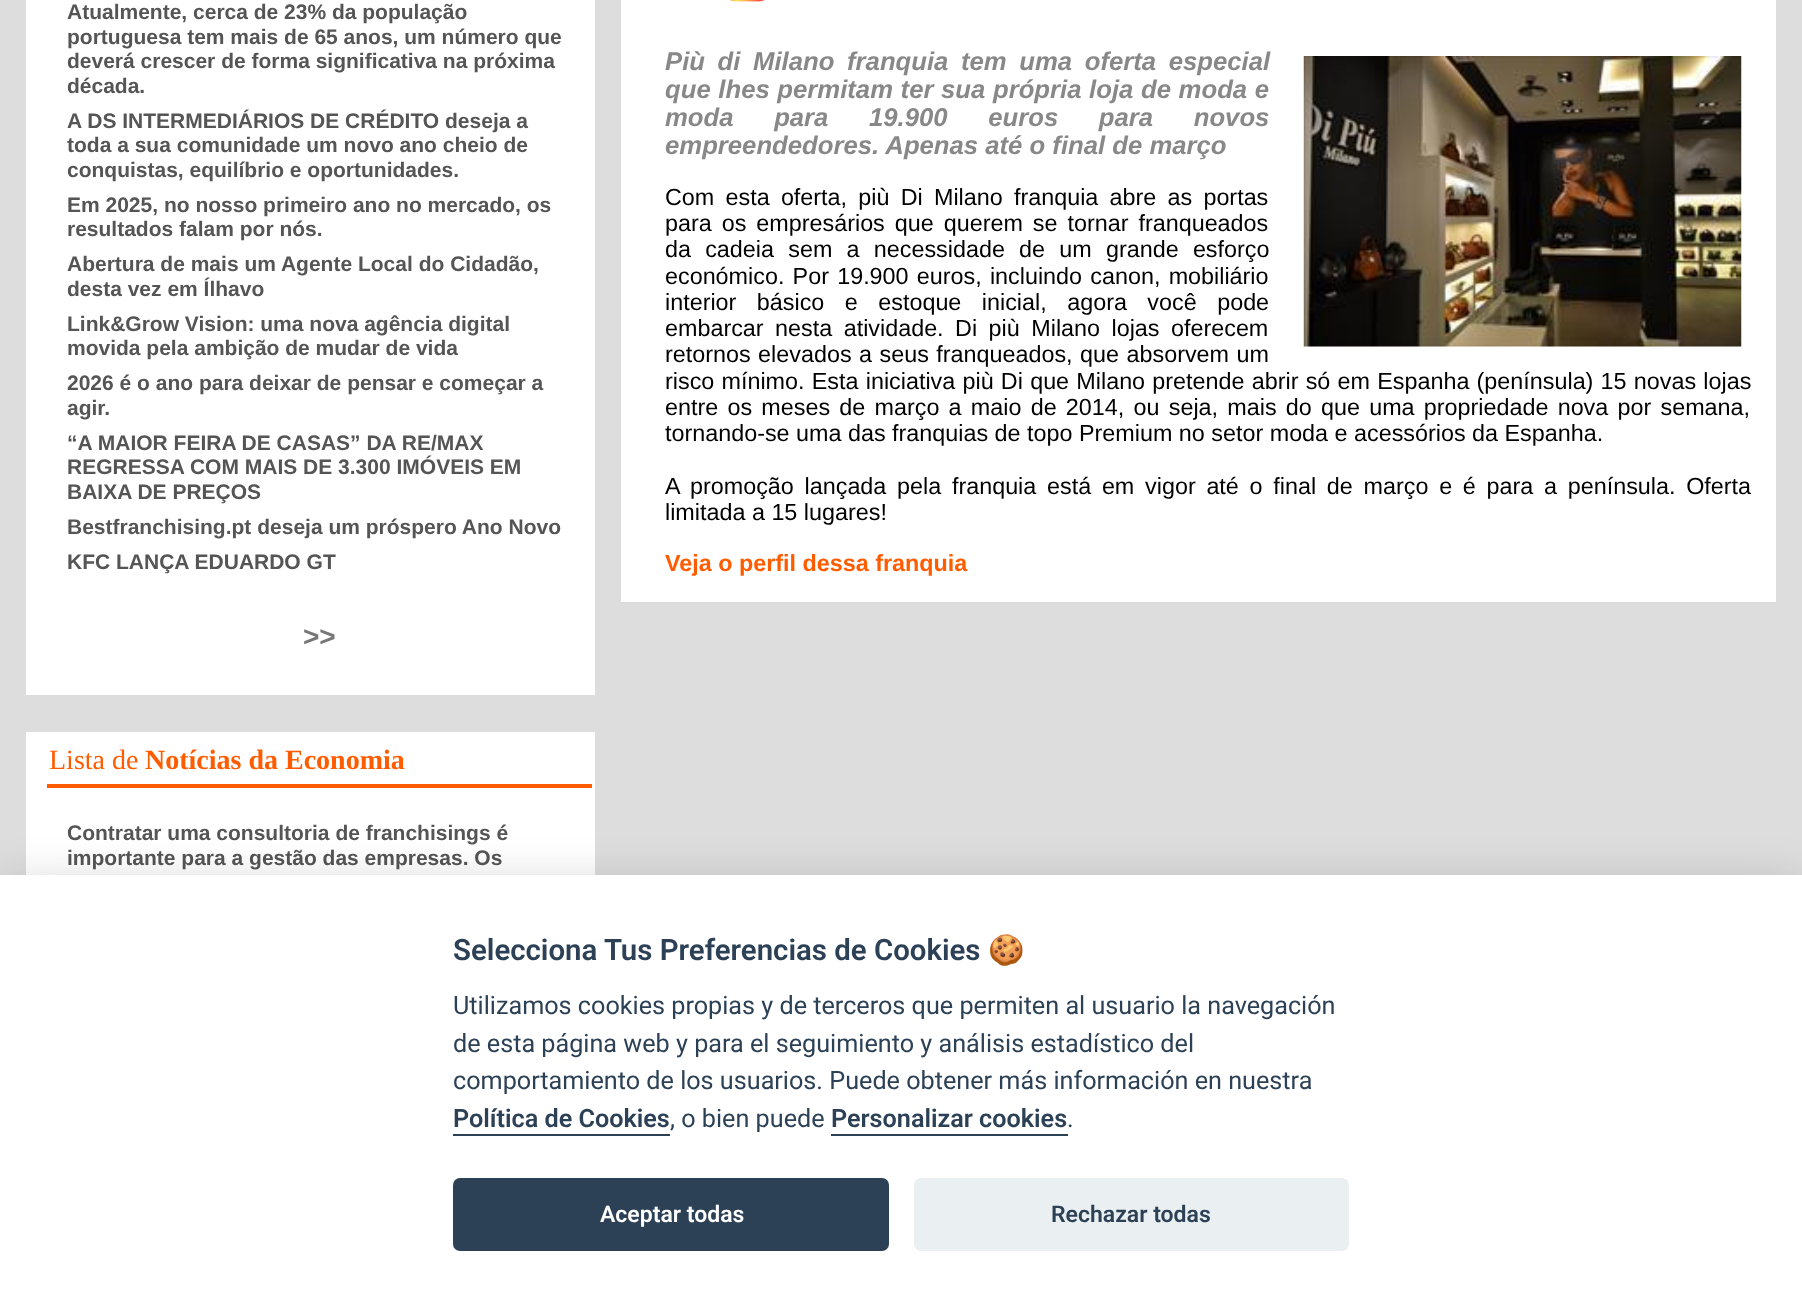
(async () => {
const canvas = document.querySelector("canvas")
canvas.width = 1802
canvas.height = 1306
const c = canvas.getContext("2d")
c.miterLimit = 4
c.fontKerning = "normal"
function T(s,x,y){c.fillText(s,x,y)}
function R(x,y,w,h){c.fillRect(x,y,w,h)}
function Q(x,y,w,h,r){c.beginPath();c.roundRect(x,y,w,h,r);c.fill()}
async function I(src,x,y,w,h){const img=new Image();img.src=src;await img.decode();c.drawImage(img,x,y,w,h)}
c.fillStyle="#ddd"
R(0,0,1802,1306)
c.fillStyle="#fff"
R(26,0,569,695)
c.font="bold 21px Liberation Sans"
c.fillStyle="#555"
T("Atualmente, cerca de 23% da população",67,19)
T("portuguesa tem mais de 65 anos, um número que",67,44)
T("deverá crescer de forma significativa na próxima",67,68)
T("década.",67,93)
T("A DS INTERMEDIÁRIOS DE CRÉDITO deseja a",67,128)
T("toda a sua comunidade um novo ano cheio de",67,152)
T("conquistas, equilíbrio e oportunidades.",67,177)
T("Em 2025, no nosso primeiro ano no mercado, os",67,212)
T("resultados falam por nós.",67,236)
T("Abertura de mais um Agente Local do Cidadão,",67,271)
T("desta vez em Ílhavo",67,296)
T("Link&Grow Vision: uma nova agência digital",67,331)
T("movida pela ambição de mudar de vida",67,355)
T("2026 é o ano para deixar de pensar e começar a",67,390)
T("agir.",67,415)
T("“A MAIOR FEIRA DE CASAS” DA RE/MAX",67,450)
T("REGRESSA COM MAIS DE 3.300 IMÓVEIS EM",67,474)
T("BAIXA DE PREÇOS",67,499)
T("Bestfranchising.pt deseja um próspero Ano Novo",67,534)
T("KFC LANÇA EDUARDO GT",67,569)
c.font="bold 28px Liberation Sans"
c.fillStyle="#777"
T(">>",303,646)
c.fillStyle="#fff"
R(26,732,569,143)
c.fillStyle="#ff5c00"
R(47,784,545,4)
c.font="28px Liberation Serif"
T("Lista de",49,769)
c.font="bold 28px Liberation Serif"
T("Notícias da Economia",145,769)
c.font="bold 21px Liberation Sans"
c.fillStyle="#555"
T("Contratar uma consultoria de franchisings é",67,840)
T("importante para a gestão das empresas. Os",67,865)
c.fillStyle="#fff"
R(621,0,1155,602)
await I("1.png",730,0,35,2)
c.wordSpacing="5.5px"
c.font="italic bold 25.7px Liberation Sans"
c.fillStyle="#888"
T("Più di Milano franquia tem uma oferta especial",665,70)
await I("2.png",1303,56,439,291)
c.wordSpacing="0.5px"
T("que lhes permitam ter sua própria loja de moda e",665,98)
c.wordSpacing="33.5px"
T("moda para 19.900 euros para novos",665,126)
c.wordSpacing="0px"
T("empreendedores. Apenas até o final de março",665,154)
c.wordSpacing="4.75px"
c.font="23.35px Liberation Sans"
c.fillStyle="#000"
T("Com esta oferta, più Di Milano franquia abre as portas",665,205)
c.wordSpacing="3.5px"
T("para os empresários que querem se tornar franqueados",665,231)
c.wordSpacing="7.75px"
T("da cadeia sem a necessidade de um grande esforço",665,257)
c.wordSpacing="1.75px"
T("económico. Por 19.900 euros, incluindo canon, mobiliário",665,284)
c.wordSpacing="14px"
T("interior básico e estoque inicial, agora você pode",665,310)
c.wordSpacing="5px"
T("embarcar nesta atividade. Di più Milano lojas oferecem",665,336)
c.wordSpacing="1px"
T("retornos elevados a seus franqueados, que absorvem um",665,362)
c.wordSpacing="0.75px"
T("risco mínimo. Esta iniciativa più Di que Milano pretende abrir só em Espanha (península) 15 novas lojas",665,389)
c.wordSpacing="2.75px"
T("entre os meses de março a maio de 2014, ou seja, mais do que uma propriedade nova por semana,",665,415)
c.wordSpacing="0px"
T("tornando-se uma das franquias de topo Premium no setor moda e acessórios da Espanha.",665,441)
c.wordSpacing="4.25px"
T("A promoção lançada pela franquia está em vigor até o final de março e é para a península. Oferta",665,494)
c.wordSpacing="0px"
T("limitada a 15 lugares!",665,520)
c.font="bold 23.35px Liberation Sans"
c.fillStyle="#ff5c00"
T("Veja o perfil dessa franquia",665,571)
c.fillStyle="#02020347"
c.filter="blur(26px)"
c.beginPath()
c.rect(0,893,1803,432)
c.fill()
c.filter="none"
c.fillStyle="#fff"
R(0,875,1802,431)
c.font="600 29.4px Roboto"
c.fillStyle="#2d4156"
T("Selecciona Tus Preferencias de Cookies",453,960)
c.font="bold 29.4px Noto Color Emoji"
T("🍪",988,960)
c.font="25.2px Roboto"
T("Utilizamos cookies propias y de terceros que permiten al usuario la navegación",453,1014)
T("de esta página web y para el seguimiento y análisis estadístico del",453,1052)
T("comportamiento de los usuarios. Puede obtener más información en nuestra",453,1089)
c.font="600 25.2px Roboto"
T("Política de Cookies",453,1127)
R(453,1134,217,2)
c.font="25.2px Roboto"
T(", o bien puede",670,1127)
c.font="600 25.2px Roboto"
T("Personalizar cookies",831,1127)
R(831,1134,237,2)
c.font="25.2px Roboto"
T(".",1067,1127)
Q(453,1178,436,73,7)
c.font="600 23px Roboto"
c.fillStyle="#fff"
T("Aceptar todas",600,1222)
c.fillStyle="#eaeff2"
Q(914,1178,435,73,7)
c.fillStyle="#2d4156"
T("Rechazar todas",1051,1222)
})()
